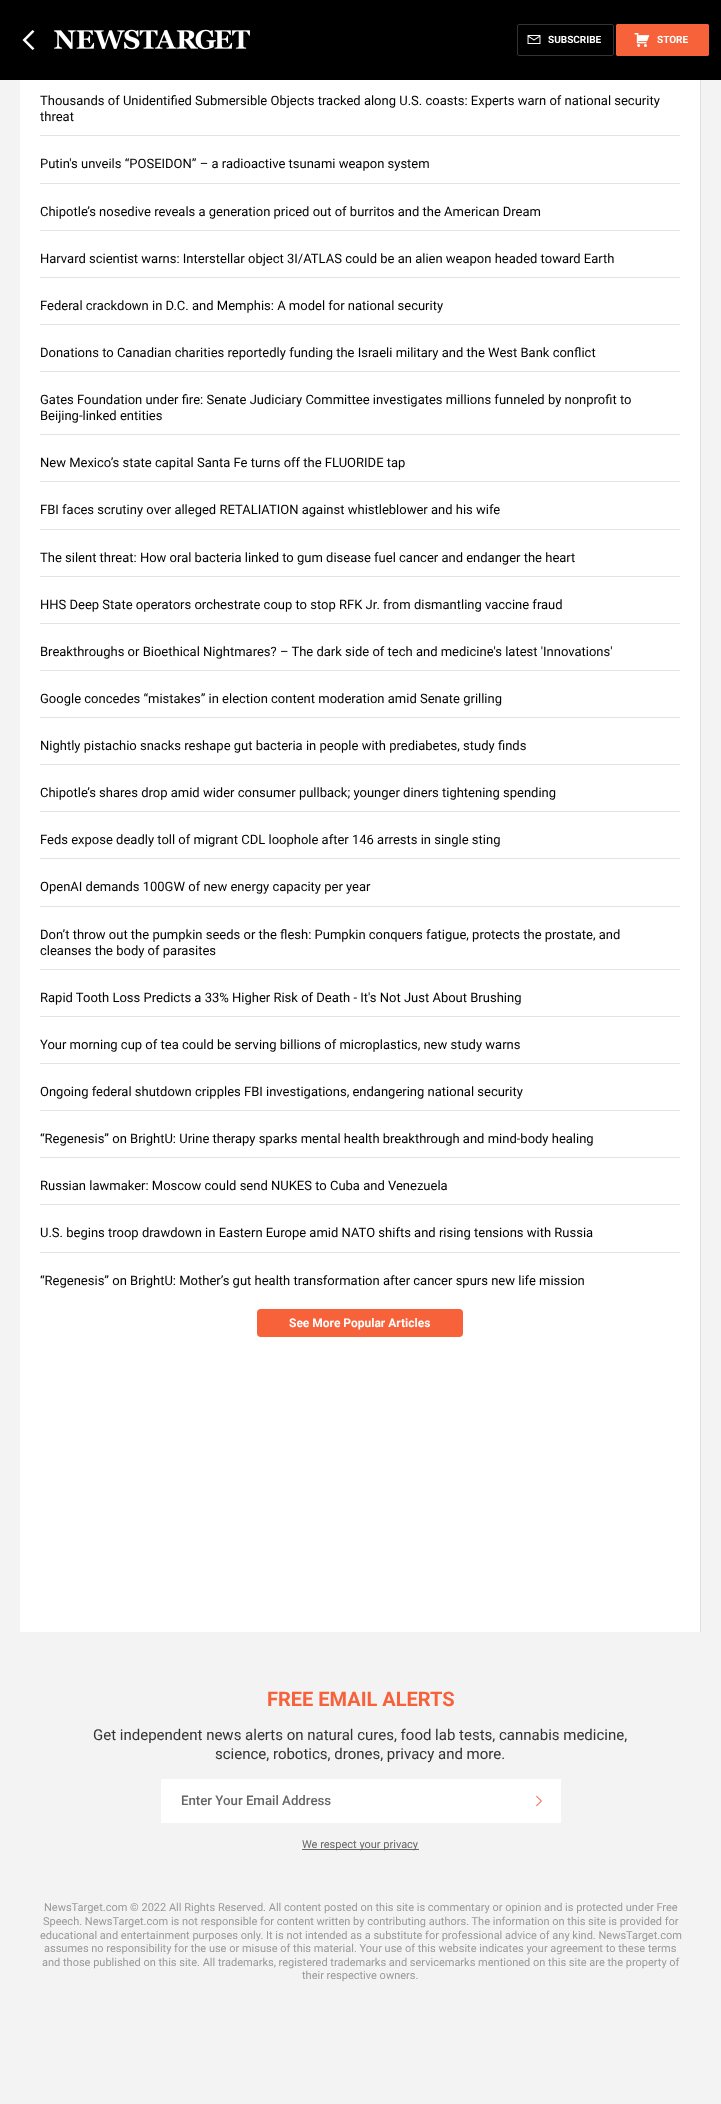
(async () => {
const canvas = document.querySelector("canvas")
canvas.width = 721
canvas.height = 2104
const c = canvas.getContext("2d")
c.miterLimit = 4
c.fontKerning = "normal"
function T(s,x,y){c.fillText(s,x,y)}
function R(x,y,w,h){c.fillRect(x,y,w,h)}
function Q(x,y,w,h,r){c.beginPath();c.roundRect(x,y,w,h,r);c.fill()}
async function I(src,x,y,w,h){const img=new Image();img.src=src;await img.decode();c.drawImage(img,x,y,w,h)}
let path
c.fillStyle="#f3f3f3"
R(0,0,721,2104)
c.fillStyle="#000"
R(0,0,721,80)
c.fillStyle="#fff"
path = new Path2D("M34.5 31.5l-2-1.5l-10 10l10 10l2-1.5l-8.5-8.5z")
c.fill(path)
await I("1.png",54,29,196,21)
await I("2.png",527,35,14,9)
c.beginPath()
c.roundRect(517.5,24.5,96,31,1.5)
c.strokeStyle="#333"
c.stroke()
c.font="bold 10px Roboto"
T("SUBSCRIBE",548,43)
c.fillStyle="#f7623b"
Q(616,24,93,32,2)
await I("3.png",634,33,16,14)
c.beginPath()
c.roundRect(616.5,24.5,92,31,1.5)
c.strokeStyle="#f7623b"
c.stroke()
c.fillStyle="#fff"
T("STORE",657,43)
R(20,80,680,1552)
c.fillStyle="#e0e0e0"
R(700,80,1,1552)
c.fillStyle="#e3e3e3"
R(40,135,640,1)
c.font="13px Roboto"
c.fillStyle="#000"
T("Thousands of Unidentified Submersible Objects tracked along U.S. coasts: Experts warn of national security",40,105)
T("threat",40,121)
c.fillStyle="#e3e3e3"
R(40,183,640,1)
c.fillStyle="#000"
T("Putin's unveils “POSEIDON” – a radioactive tsunami weapon system",40,168)
c.fillStyle="#e3e3e3"
R(40,230,640,1)
c.fillStyle="#000"
T("Chipotle’s nosedive reveals a generation priced out of burritos and the American Dream",40,216)
c.fillStyle="#e3e3e3"
R(40,277,640,1)
c.fillStyle="#000"
T("Harvard scientist warns: Interstellar object 3I/ATLAS could be an alien weapon headed toward Earth",40,263)
c.fillStyle="#e3e3e3"
R(40,324,640,1)
c.fillStyle="#000"
T("Federal crackdown in D.C. and Memphis: A model for national security",40,310)
c.fillStyle="#e3e3e3"
R(40,371,640,1)
c.fillStyle="#000"
T("Donations to Canadian charities reportedly funding the Israeli military and the West Bank conflict",40,357)
c.fillStyle="#e3e3e3"
R(40,434,640,1)
c.fillStyle="#000"
T("Gates Foundation under fire: Senate Judiciary Committee investigates millions funneled by nonprofit to",40,404)
T("Beijing-linked entities",40,420)
c.fillStyle="#e3e3e3"
R(40,481,640,1)
c.fillStyle="#000"
T("New Mexico’s state capital Santa Fe turns off the FLUORIDE tap",40,467)
c.fillStyle="#e3e3e3"
R(40,529,640,1)
c.fillStyle="#000"
T("FBI faces scrutiny over alleged RETALIATION against whistleblower and his wife",40,514)
c.fillStyle="#e3e3e3"
R(40,576,640,1)
c.fillStyle="#000"
T("The silent threat: How oral bacteria linked to gum disease fuel cancer and endanger the heart",40,562)
c.fillStyle="#e3e3e3"
R(40,623,640,1)
c.fillStyle="#000"
T("HHS Deep State operators orchestrate coup to stop RFK Jr. from dismantling vaccine fraud",40,609)
c.fillStyle="#e3e3e3"
R(40,670,640,1)
c.fillStyle="#000"
T("Breakthroughs or Bioethical Nightmares? – The dark side of tech and medicine's latest 'Innovations'",40,656)
c.fillStyle="#e3e3e3"
R(40,717,640,1)
c.fillStyle="#000"
T("Google concedes “mistakes” in election content moderation amid Senate grilling",40,703)
c.fillStyle="#e3e3e3"
R(40,764,640,1)
c.fillStyle="#000"
T("Nightly pistachio snacks reshape gut bacteria in people with prediabetes, study finds",40,750)
c.fillStyle="#e3e3e3"
R(40,811,640,1)
c.fillStyle="#000"
T("Chipotle’s shares drop amid wider consumer pullback; younger diners tightening spending",40,797)
c.fillStyle="#e3e3e3"
R(40,858,640,1)
c.fillStyle="#000"
T("Feds expose deadly toll of migrant CDL loophole after 146 arrests in single sting",40,844)
c.fillStyle="#e3e3e3"
R(40,906,640,1)
c.fillStyle="#000"
T("OpenAI demands 100GW of new energy capacity per year",40,891)
c.fillStyle="#e3e3e3"
R(40,969,640,1)
c.fillStyle="#000"
T("Don’t throw out the pumpkin seeds or the flesh: Pumpkin conquers fatigue, protects the prostate, and",40,939)
T("cleanses the body of parasites",40,955)
c.fillStyle="#e3e3e3"
R(40,1016,640,1)
c.fillStyle="#000"
T("Rapid Tooth Loss Predicts a 33% Higher Risk of Death - It's Not Just About Brushing",40,1002)
c.fillStyle="#e3e3e3"
R(40,1063,640,1)
c.fillStyle="#000"
T("Your morning cup of tea could be serving billions of microplastics, new study warns",40,1049)
c.fillStyle="#e3e3e3"
R(40,1110,640,1)
c.fillStyle="#000"
T("Ongoing federal shutdown cripples FBI investigations, endangering national security",40,1096)
c.fillStyle="#e3e3e3"
R(40,1157,640,1)
c.fillStyle="#000"
T("“Regenesis” on BrightU: Urine therapy sparks mental health breakthrough and mind-body healing",40,1143)
c.fillStyle="#e3e3e3"
R(40,1204,640,1)
c.fillStyle="#000"
T("Russian lawmaker: Moscow could send NUKES to Cuba and Venezuela",40,1190)
c.fillStyle="#e3e3e3"
R(40,1252,640,1)
c.fillStyle="#000"
T("U.S. begins troop drawdown in Eastern Europe amid NATO shifts and rising tensions with Russia",40,1237)
T("“Regenesis” on BrightU: Mother’s gut health transformation after cancer spurs new life mission",40,1285)
c.fillStyle="#f7623b"
Q(257,1309,206,28,4)
c.font="bold 12px Roboto"
c.fillStyle="#fff"
T("See More Popular Articles",289,1327)
c.font="bold 20px Roboto"
c.fillStyle="#f7623b"
T("FREE EMAIL ALERTS",267,1706)
c.font="15px Roboto"
c.fillStyle="#333"
T("Get independent news alerts on natural cures, food lab tests, cannabis medicine,",93,1740)
T("science, robotics, drones, privacy and more.",215,1759)
c.fillStyle="#fff"
R(161,1779,400,44)
await I("4.png",536,1795,6,12)
c.font="500 13.25px Roboto"
c.fillStyle="#666"
T("Enter Your Email Address",181,1805)
R(302,1849,117,1)
c.font="11px Roboto"
T("We respect your privacy",302,1848)
c.fillStyle="#999"
T("NewsTarget.com © 2022 All Rights Reserved. All content posted on this site is commentary or opinion and is protected under Free",44,1911)
T("Speech. NewsTarget.com is not responsible for content written by contributing authors. The information on this site is provided for",43,1925)
T("educational and entertainment purposes only. It is not intended as a substitute for professional advice of any kind. NewsTarget.com",40,1939)
T("assumes no responsibility for the use or misuse of this material. Your use of this website indicates your agreement to these terms",44,1952)
T("and those published on this site. All trademarks, registered trademarks and servicemarks mentioned on this site are the property of",42,1966)
T("their respective owners.",302,1979)
})()
